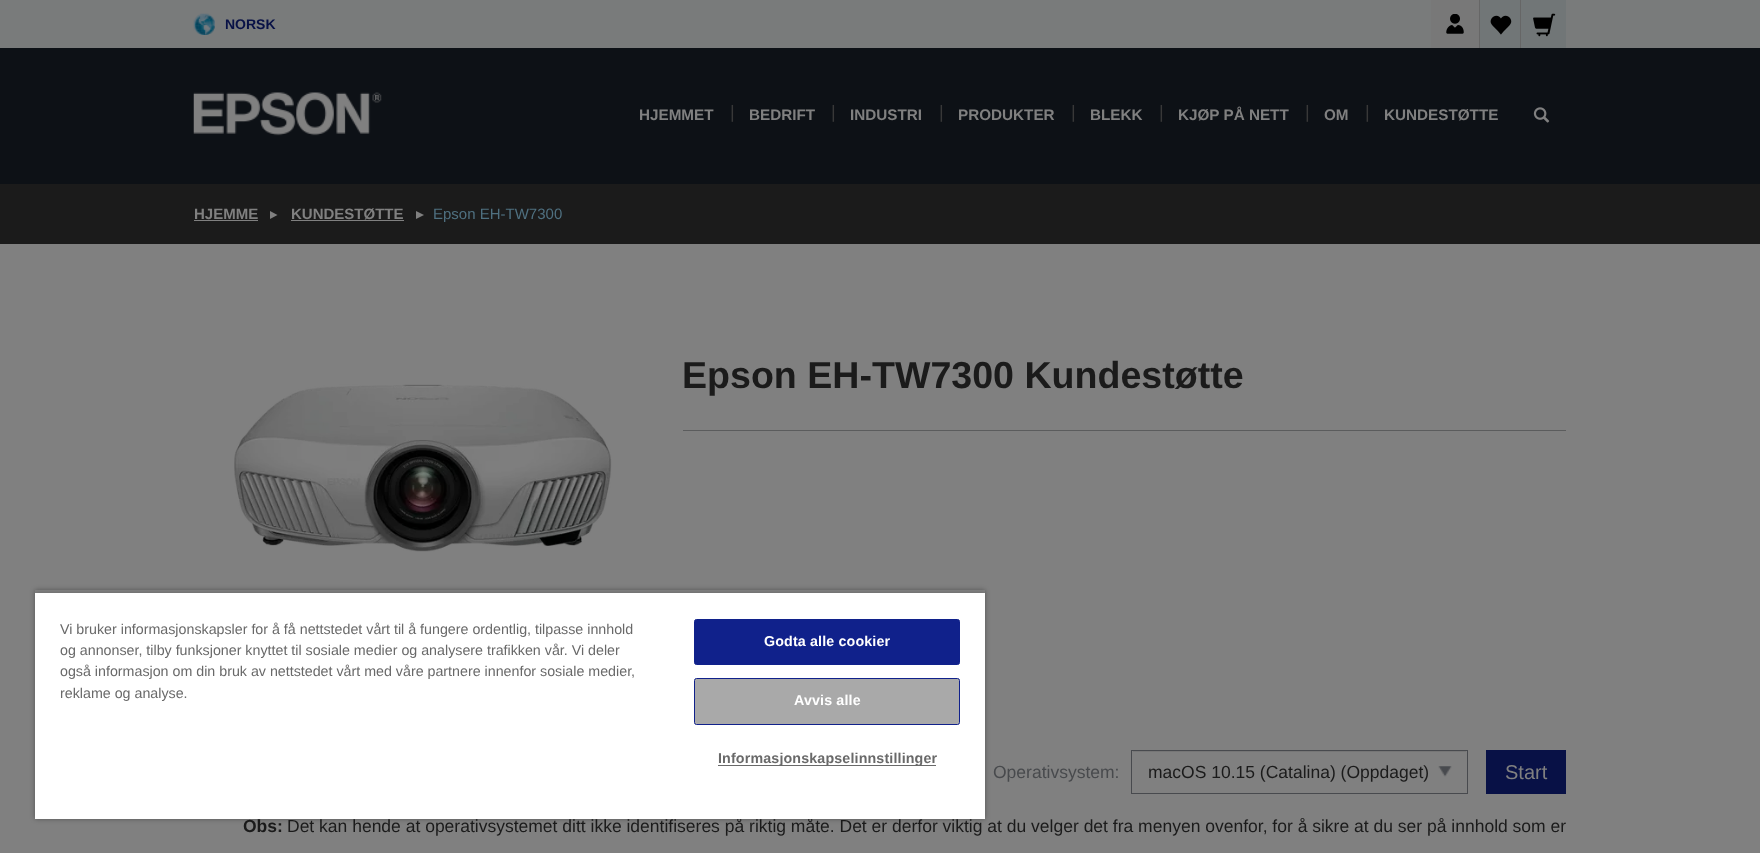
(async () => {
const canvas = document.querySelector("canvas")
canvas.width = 1760
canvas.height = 853
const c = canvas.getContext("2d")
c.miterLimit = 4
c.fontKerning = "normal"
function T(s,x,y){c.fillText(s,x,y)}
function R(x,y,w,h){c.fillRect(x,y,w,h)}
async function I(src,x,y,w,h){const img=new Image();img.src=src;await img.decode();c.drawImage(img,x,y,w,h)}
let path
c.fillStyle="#808080"
R(0,0,1760,853)
c.fillStyle="#797b7b"
R(0,0,1760,48)
await I("1.png",193,13,22,22)
c.font="bold 14px Liberation Sans"
c.fillStyle="#081146"
T("NORSK",225,29)
c.fillStyle="#787878"
R(1431,0,48,48)
await I("2.png",1446,14,18,20)
c.fillStyle="#717677"
R(1480,0,40,48)
c.fillStyle="#666"
R(1479,0,1,48)
await I("3.png",1490,15,22,20)
R(1520,0,1,48)
c.fillStyle="#717677"
R(1521,0,45,48)
await I("4.png",1533,13,23,24)
c.fillStyle="#0d1116"
R(0,48,1760,136)
await I("5.png",193,92,189,44)
c.font="bold 15.25px Liberation Sans"
c.fillStyle="#808080"
T("HJEMMET",639,120)
c.font="18px Liberation Sans"
c.fillStyle="#383838"
T("|",730,118)
c.font="bold 15.25px Liberation Sans"
c.fillStyle="#808080"
T("BEDRIFT",749,120)
c.font="18px Liberation Sans"
c.fillStyle="#383838"
T("|",831,118)
c.font="bold 15.25px Liberation Sans"
c.fillStyle="#808080"
T("INDUSTRI",850,120)
c.font="18px Liberation Sans"
c.fillStyle="#383838"
T("|",939,118)
c.font="bold 15.25px Liberation Sans"
c.fillStyle="#808080"
T("PRODUKTER",958,120)
c.font="18px Liberation Sans"
c.fillStyle="#383838"
T("|",1071,118)
c.font="bold 15.25px Liberation Sans"
c.fillStyle="#808080"
T("BLEKK",1090,120)
c.font="18px Liberation Sans"
c.fillStyle="#383838"
T("|",1159,118)
c.font="bold 15.25px Liberation Sans"
c.fillStyle="#808080"
T("KJØP PÅ NETT",1178,120)
c.font="18px Liberation Sans"
c.fillStyle="#383838"
T("|",1305,118)
c.font="bold 15.25px Liberation Sans"
c.fillStyle="#808080"
T("OM",1324,120)
c.font="18px Liberation Sans"
c.fillStyle="#383838"
T("|",1365,118)
c.font="bold 15.25px Liberation Sans"
c.fillStyle="#808080"
T("KUNDESTØTTE",1384,120)
await I("6.png",1533,107,17,16)
c.fillStyle="#1b1b1b"
R(0,184,1760,60)
c.font="bold 15px Liberation Sans"
c.fillStyle="#808080"
T("HJEMME",194,219)
R(194,220,64,1)
path = new Path2D("M270 219v-8l7.5 4z")
c.fill(path)
T("KUNDESTØTTE",291,219)
R(291,220,113,1)
path = new Path2D("M416 219v-8l8 4z")
c.fill(path)
c.font="15px Liberation Sans"
c.fillStyle="#4f7080"
T("Epson EH-TW7300",433,219)
c.fillStyle="#5b5c5d"
R(683,430,883,1)
c.font="bold 37.6px Liberation Sans"
c.fillStyle="#1b1b1b"
T("Epson EH-TW7300 Kundestøtte",682,388)
await I("7.png",234,384,378,168)
c.font="17.5px Liberation Sans"
c.fillStyle="#484a4d"
T("Operativsystem:",993,778)
await I("8.png",1438,766,14,11)
c.fillStyle="#767676"
R(1133,751,333,1)
c.strokeStyle="#484a4e"
c.strokeRect(1131.5,750.5,336,43)
c.fillStyle="#1b1b1b"
T("macOS 10.15 (Catalina) (Oppdaget)",1148,778)
c.fillStyle="#081146"
R(1486,750,80,44)
c.font="20px Liberation Sans"
c.fillStyle="#808080"
T("Start",1505,779)
c.font="bold 17.5px Liberation Sans"
c.fillStyle="#1b1b1b"
T("Obs:",243,832)
c.font="17.5px Liberation Sans"
T("Det kan hende at operativsystemet ditt ikke identifiseres på riktig måte. Det er derfor viktig at du velger det fra menyen ovenfor, for å sikre at du ser på innhold som er",287,832)
c.save()
path = new Path2D("M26 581h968v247h-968zm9 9h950v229h-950z")
c.clip(path,"evenodd")
c.fillStyle="#00000059"
c.filter="blur(2.5px)"
c.beginPath()
c.rect(35,590,950,229)
c.fill()
c.filter="none"
c.restore()
c.save()
c.beginPath()
c.rect(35,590,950,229)
c.clip()
c.fillStyle="#00000033"
c.filter="blur(2.5px)"
c.beginPath()
c.rect(35,593,950,226)
c.fill()
c.filter="none"
c.restore()
c.fillStyle="#fff"
R(35,593,950,226)
c.font="14.25px Liberation Sans"
c.fillStyle="#696969"
T("Vi bruker informasjonskapsler for å få nettstedet vårt til å fungere ordentlig, tilpasse innhold",60,634)
T("og annonser, tilby funksjoner knyttet til sosiale medier og analysere trafikken vår. Vi deler",60,655)
T("også informasjon om din bruk av nettstedet vårt med våre partnere innenfor sosiale medier,",60,676)
T("reklame og analyse.",60,698)
c.fillStyle="#10218b"
c.beginPath()
c.roundRect(694.5,619.5,265,45,2)
c.fill()
c.strokeStyle="#10218b"
c.stroke()
c.letterSpacing="0.15px"
c.font="bold 14.25px Liberation Sans"
c.fillStyle="#fff"
T("Godta alle cookier",764,646)
c.fillStyle="#a9a9a9"
c.beginPath()
c.roundRect(694.5,678.5,265,46,2)
c.fill()
c.stroke()
c.fillStyle="#fff"
T("Avvis alle",794,705)
c.fillStyle="#696969"
R(718,765,218,1)
T("Informasjonskapselinnstillinger",718,763)
})()
